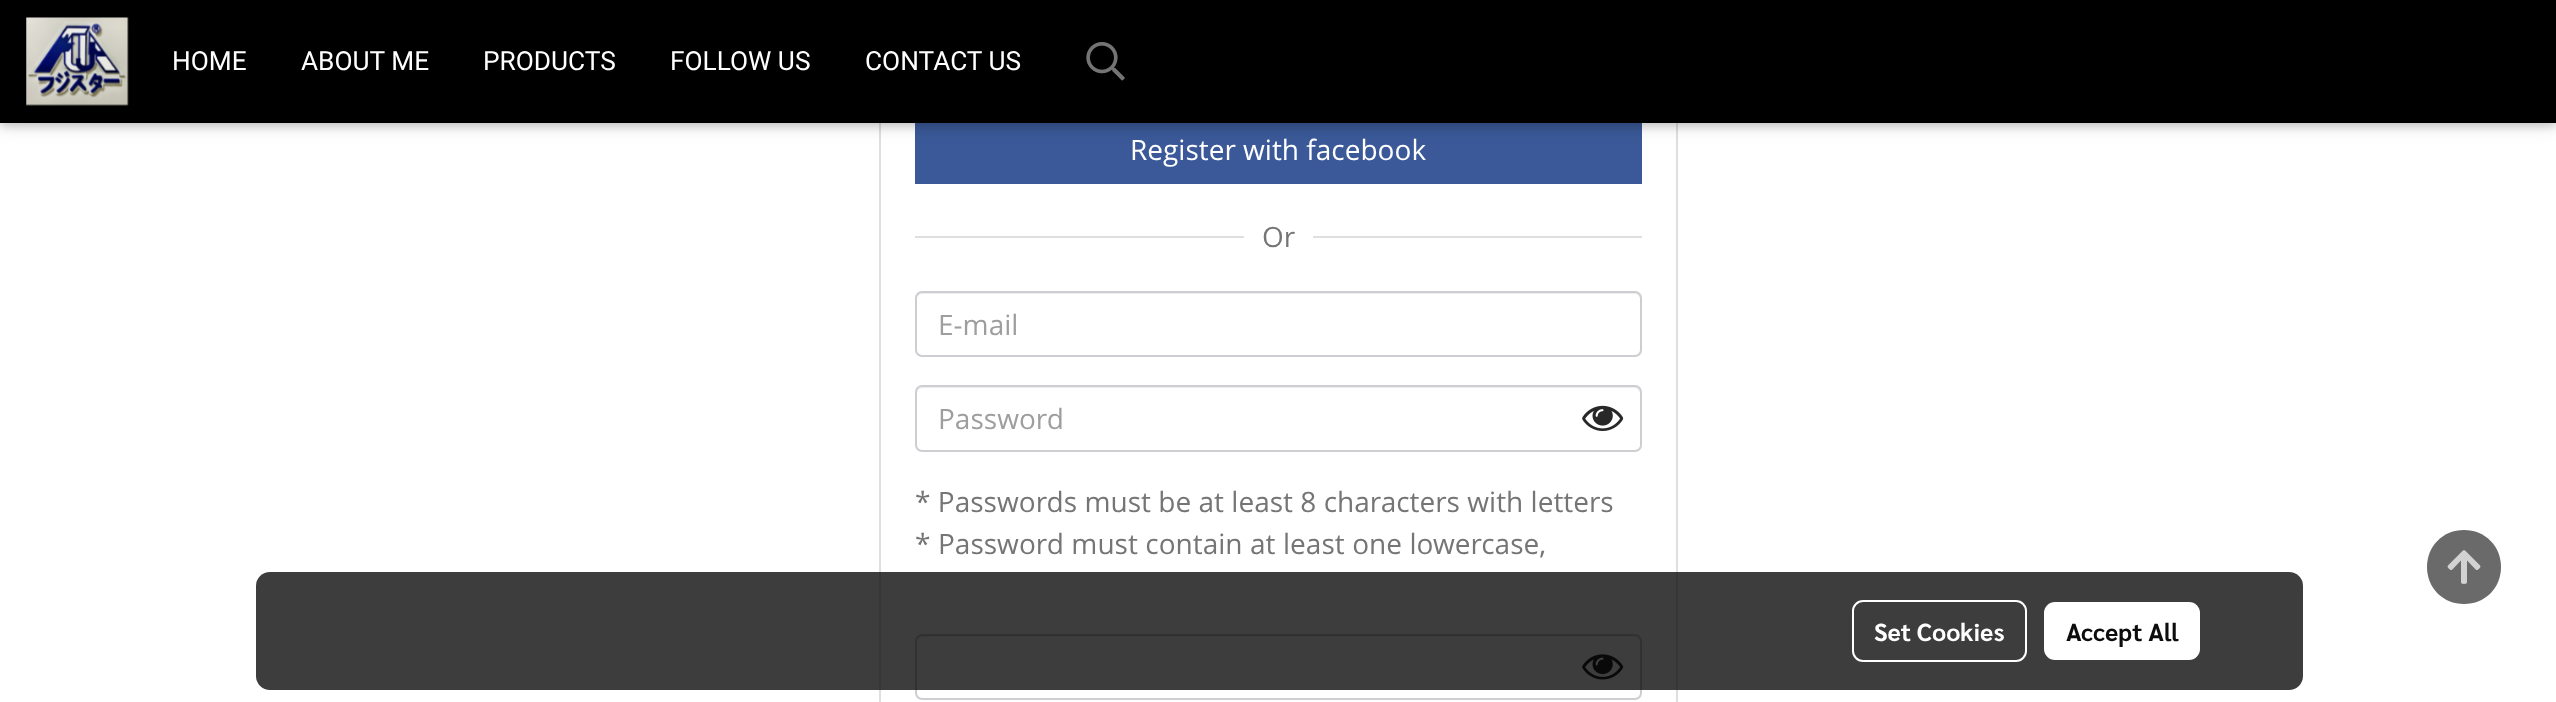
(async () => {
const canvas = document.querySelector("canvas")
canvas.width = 2556
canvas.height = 702
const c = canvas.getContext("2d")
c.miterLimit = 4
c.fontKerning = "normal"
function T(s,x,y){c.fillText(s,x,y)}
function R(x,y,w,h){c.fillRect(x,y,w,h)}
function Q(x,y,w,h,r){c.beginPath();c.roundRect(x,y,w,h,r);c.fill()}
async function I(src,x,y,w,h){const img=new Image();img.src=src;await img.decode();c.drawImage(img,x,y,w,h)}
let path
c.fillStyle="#fff"
R(0,0,2556,702)
c.strokeStyle="#dfdfdf"
c.lineWidth=2
c.strokeRect(880,-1,797,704)
c.fillStyle="#3b5998"
R(915,123,727,61)
c.fillStyle="#0000001f"
c.filter="blur(9px)"
c.beginPath()
c.rect(0,4,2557,122)
c.fill()
c.filter="none"
c.fillStyle="#00000029"
c.filter="blur(4.5px)"
c.beginPath()
c.rect(0,4,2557,122)
c.fill()
c.filter="none"
c.fillStyle="#000"
R(0,0,2556,123)
await I("1.png",26,17,103,89)
c.font="26.25px Roboto"
c.fillStyle="#fff"
T("HOME",172,70)
T("ABOUT ME",301,70)
T("PRODUCTS",483,70)
T("FOLLOW US",670,70)
T("CONTACT US",865,70)
await I("2.png",1086,42,39,39)
c.font="28px Open Sans"
T("Register with facebook",1130,160)
c.fillStyle="#dfdfdf"
R(915,236,727,2)
c.fillStyle="#fff"
R(1244,236,69,2)
c.fillStyle="#757575"
T("Or",1262,247)
c.fillStyle="#ececec"
path = new Path2D("M922 294h712c3 0 6 2 6 5v-2c0-3-2-5-5-5h-713c-3 0-5 2-5 5v2c0-3 2-5 5-5z")
c.fill(path)
c.beginPath()
c.roundRect(916,292,725,64,6)
c.strokeStyle="#cdced2"
c.stroke()
c.fillStyle="#9e9e9e"
T("E-mail",938,335)
c.fillStyle="#ececec"
path = new Path2D("M922 388h712c3 0 6 3 6 6v-2c0-3-2-5-5-5h-713c-3 0-5 2-5 5v2c0-3 2-6 5-6z")
c.fill(path)
c.beginPath()
c.roundRect(916,386,725,65,6)
c.stroke()
c.fillStyle="#9e9e9e"
T("Password",938,429)
await I("3.png",1582,405,42,26)
c.wordSpacing="0.1px"
c.fillStyle="#757575"
T("* Passwords must be at least 8 characters with letters",915,512)
c.wordSpacing="0.25px"
T("* Password must contain at least one lowercase,",915,554)
c.fillStyle="#ececec"
path = new Path2D("M922 637h712c3 0 6 2 6 5v-2c0-3-2-5-5-5h-713c-3 0-5 2-5 5v2c0-3 2-5 5-5z")
c.fill(path)
c.beginPath()
c.roundRect(916,635,725,64,6)
c.stroke()
await I("4.png",1582,654,42,26)
c.fillStyle="#6b6a6a"
path = new Path2D("M2464 530c-21 0-37 16-37 37c0 21 16 37 37 37c21 0 37-16 37-37c0-21-16-37-37-37z")
c.fill(path)
await I("5.png",2447,550,34,34)
c.fillStyle="#000000c2"
Q(256,572,2047,118,14)
c.beginPath()
c.roundRect(1853,601,173,60,10)
c.strokeStyle="#fff"
c.stroke()
c.wordSpacing="0px"
c.font="bold 24.5px Sarabun"
c.fillStyle="#fff"
T("Set Cookies",1874,641)
Q(2044,602,156,58,11)
c.fillStyle="#0d0d0d"
T("Accept All",2066,641)
})()
